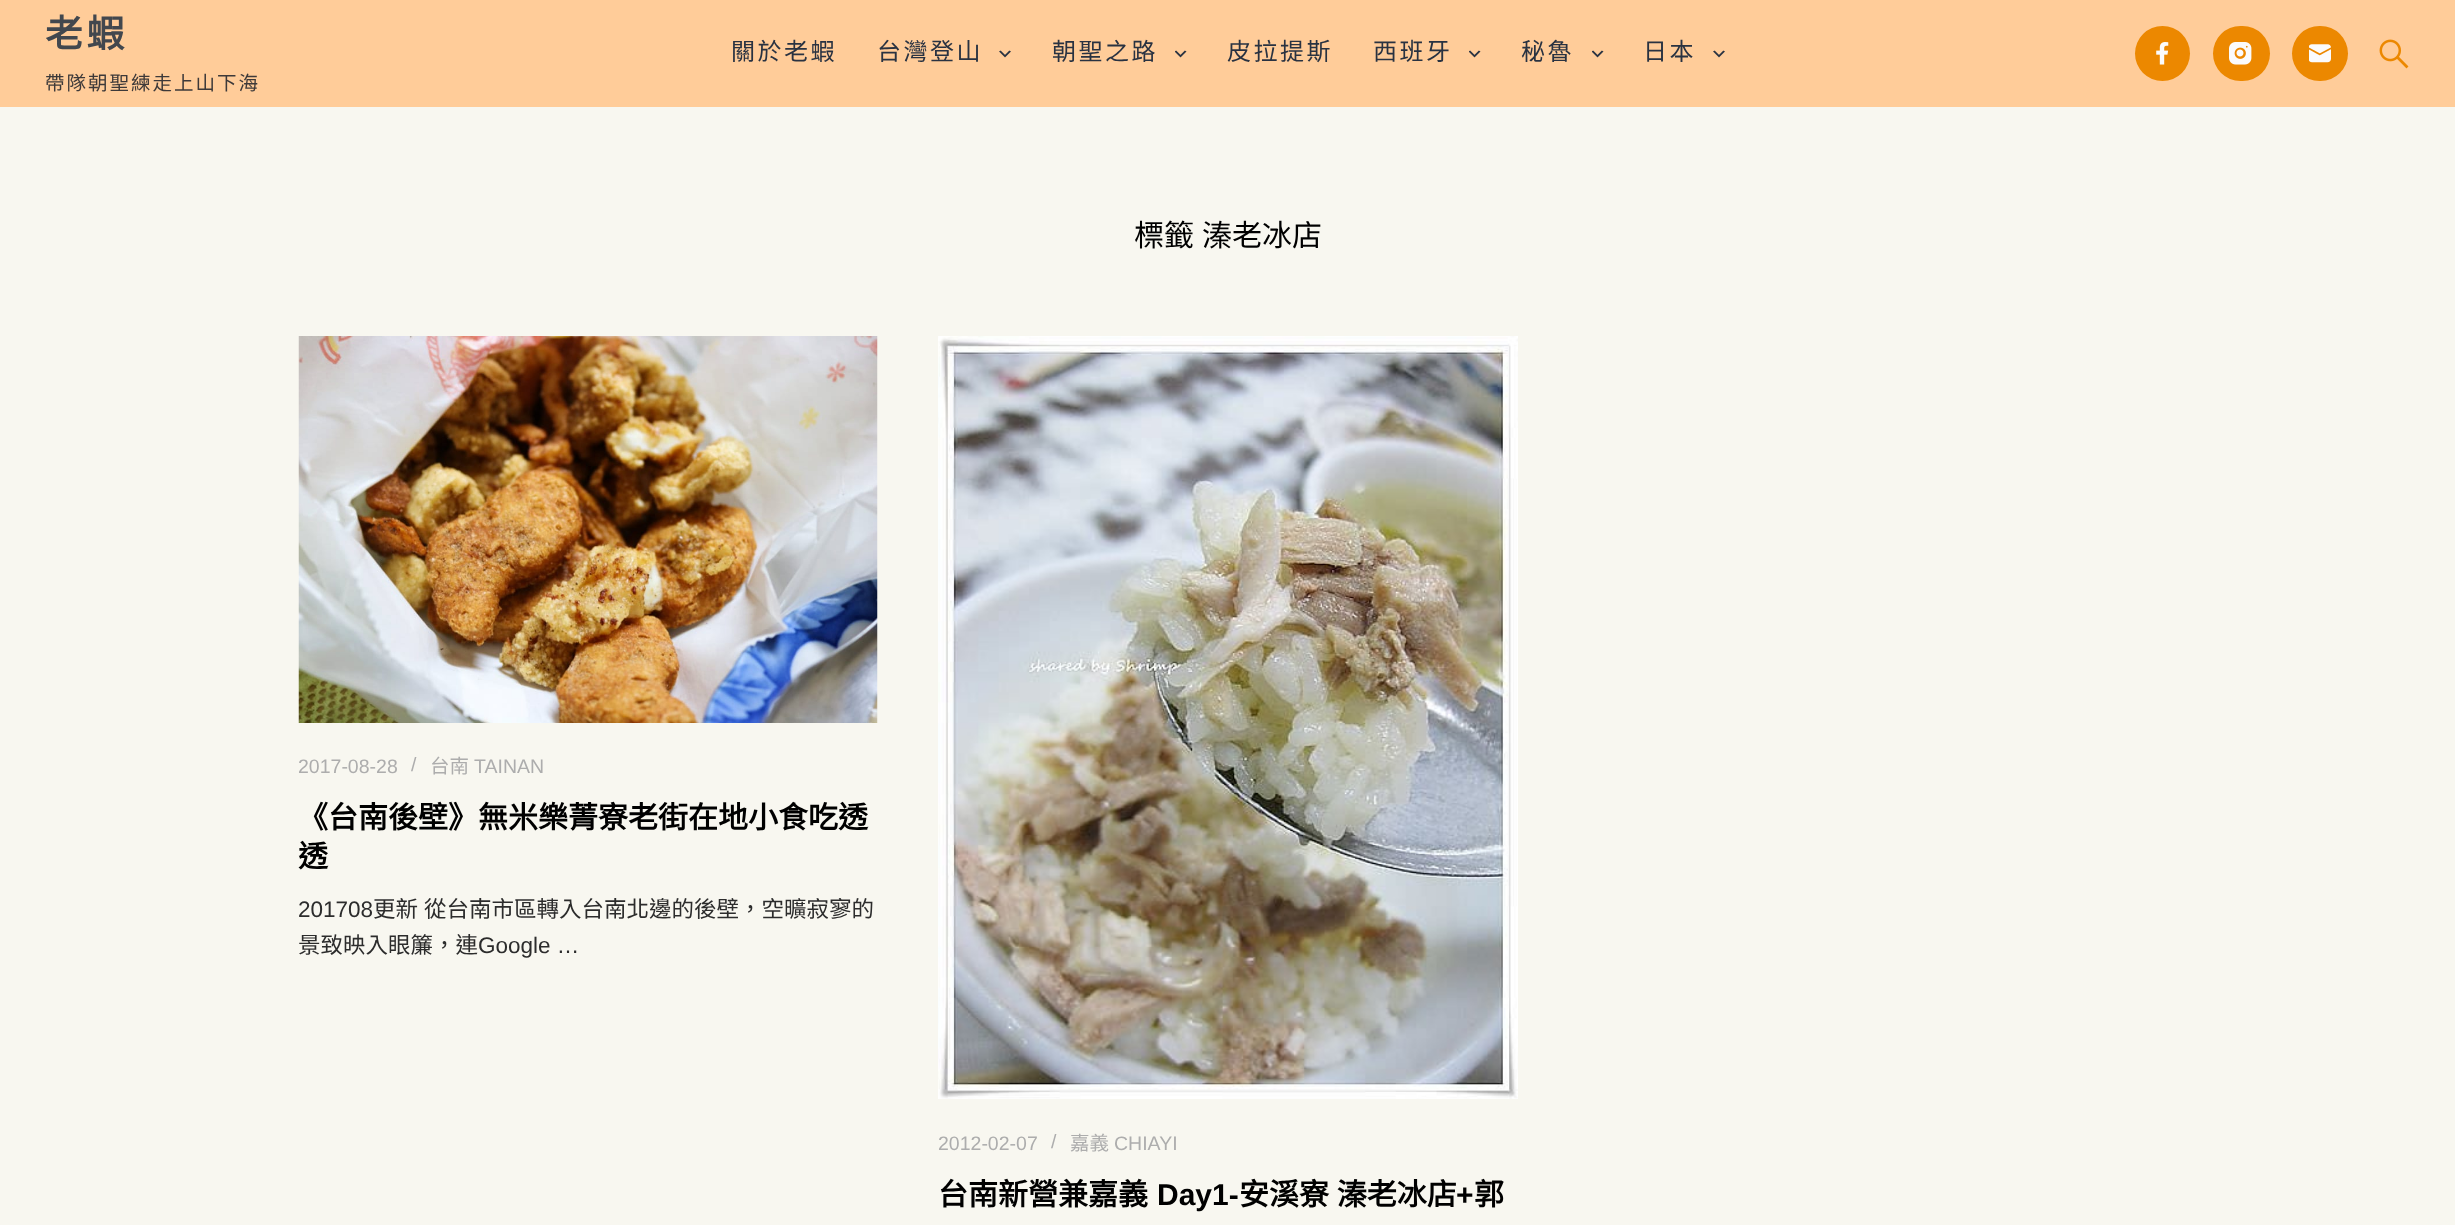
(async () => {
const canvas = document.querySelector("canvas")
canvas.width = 2455
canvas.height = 1225
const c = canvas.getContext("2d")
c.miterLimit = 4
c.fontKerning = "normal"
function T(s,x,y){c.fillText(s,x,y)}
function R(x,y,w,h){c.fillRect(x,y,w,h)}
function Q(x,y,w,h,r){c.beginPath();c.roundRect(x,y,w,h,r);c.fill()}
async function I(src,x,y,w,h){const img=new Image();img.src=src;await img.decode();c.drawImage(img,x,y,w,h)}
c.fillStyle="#f8f7f0"
R(0,0,2455,1225)
c.fillStyle="#fc9"
R(0,0,2455,107)
c.letterSpacing="4px"
c.font="bold 37.5px Noto Sans CJK TC"
c.fillStyle="#42474e"
T("老蝦",45,47)
c.letterSpacing="2px"
c.font="19.5px Noto Sans CJK TC"
c.fillStyle="#3d3939"
T("帶隊朝聖練走上山下海",45,90)
c.letterSpacing="2.5px"
c.font="24px Noto Sans CJK TC"
c.fillStyle="#293241"
T("關於老蝦",731,60)
T("台灣登山",877,60)
await I("1.png",999,50,12,8)
T("朝聖之路",1052,60)
await I("2.png",1175,50,12,8)
T("皮拉提斯",1227,60)
T("西班牙",1373,60)
await I("2.png",1469,50,12,8)
T("秘魯",1521,60)
await I("2.png",1592,50,12,8)
T("日本",1643,60)
await I("1.png",1713,50,12,8)
c.fillStyle="#ec8800"
c.beginPath()
c.arc(2162.5,53.5,27.5,0,7)
c.fill()
await I("3.png",2156,42,13,23)
Q(2213,26,57,55,27.5)
await I("4.png",2229,42,23,23)
Q(2292,26,56,55,27.5)
await I("5.png",2309,44,22,19)
await I("6.png",2379,39,30,30)
c.letterSpacing="0px"
c.font="30px Noto Sans CJK TC"
c.fillStyle="#000"
T("標籤",1134,246)
T("溱老冰店",1202,246)
await I("7.png",298,336,580,387)
c.font="19.5px Liberation Sans"
c.fillStyle="#adadad"
T("2017-08-28",298,773)
T("/",411,771)
c.font="19.5px Noto Sans CJK TC"
T("台南",430,773)
c.font="19.5px Liberation Sans"
T("TAINAN",474,773)
c.font="bold 30px Noto Sans CJK TC"
c.fillStyle="#000"
T("《台南後壁》無米樂菁寮老街在地小食吃透",298,828)
T("透",298,867)
c.font="22.5px Liberation Sans"
c.fillStyle="#2c2c2c"
T("201708",298,917)
c.font="22.5px Noto Sans CJK TC"
T("更新",373,917)
T("從台南市區轉入台南北邊的後壁，空曠寂寥的",424,917)
T("景致映入眼簾，連",298,953)
c.font="22.5px Liberation Sans"
T("Google …",478,953)
await I("8.png",938,336,580,763)
c.font="19.5px Liberation Sans"
c.fillStyle="#adadad"
T("2012-02-07",938,1150)
T("/",1051,1148)
c.font="19.5px Noto Sans CJK TC"
T("嘉義",1070,1150)
c.font="19.5px Liberation Sans"
T("CHIAYI",1114,1150)
c.font="bold 30px Noto Sans CJK TC"
c.fillStyle="#000"
T("台南新營兼嘉義",938,1205)
c.font="bold 30px Liberation Sans"
T("Day1-",1157,1205)
c.wordSpacing="1px"
c.font="bold 30px Noto Sans CJK TC"
T("安溪寮 溱老冰店",1239,1205)
c.wordSpacing="0px"
c.font="bold 30px Liberation Sans"
T("+",1456,1205)
c.font="bold 30px Noto Sans CJK TC"
T("郭",1474,1205)
})()
